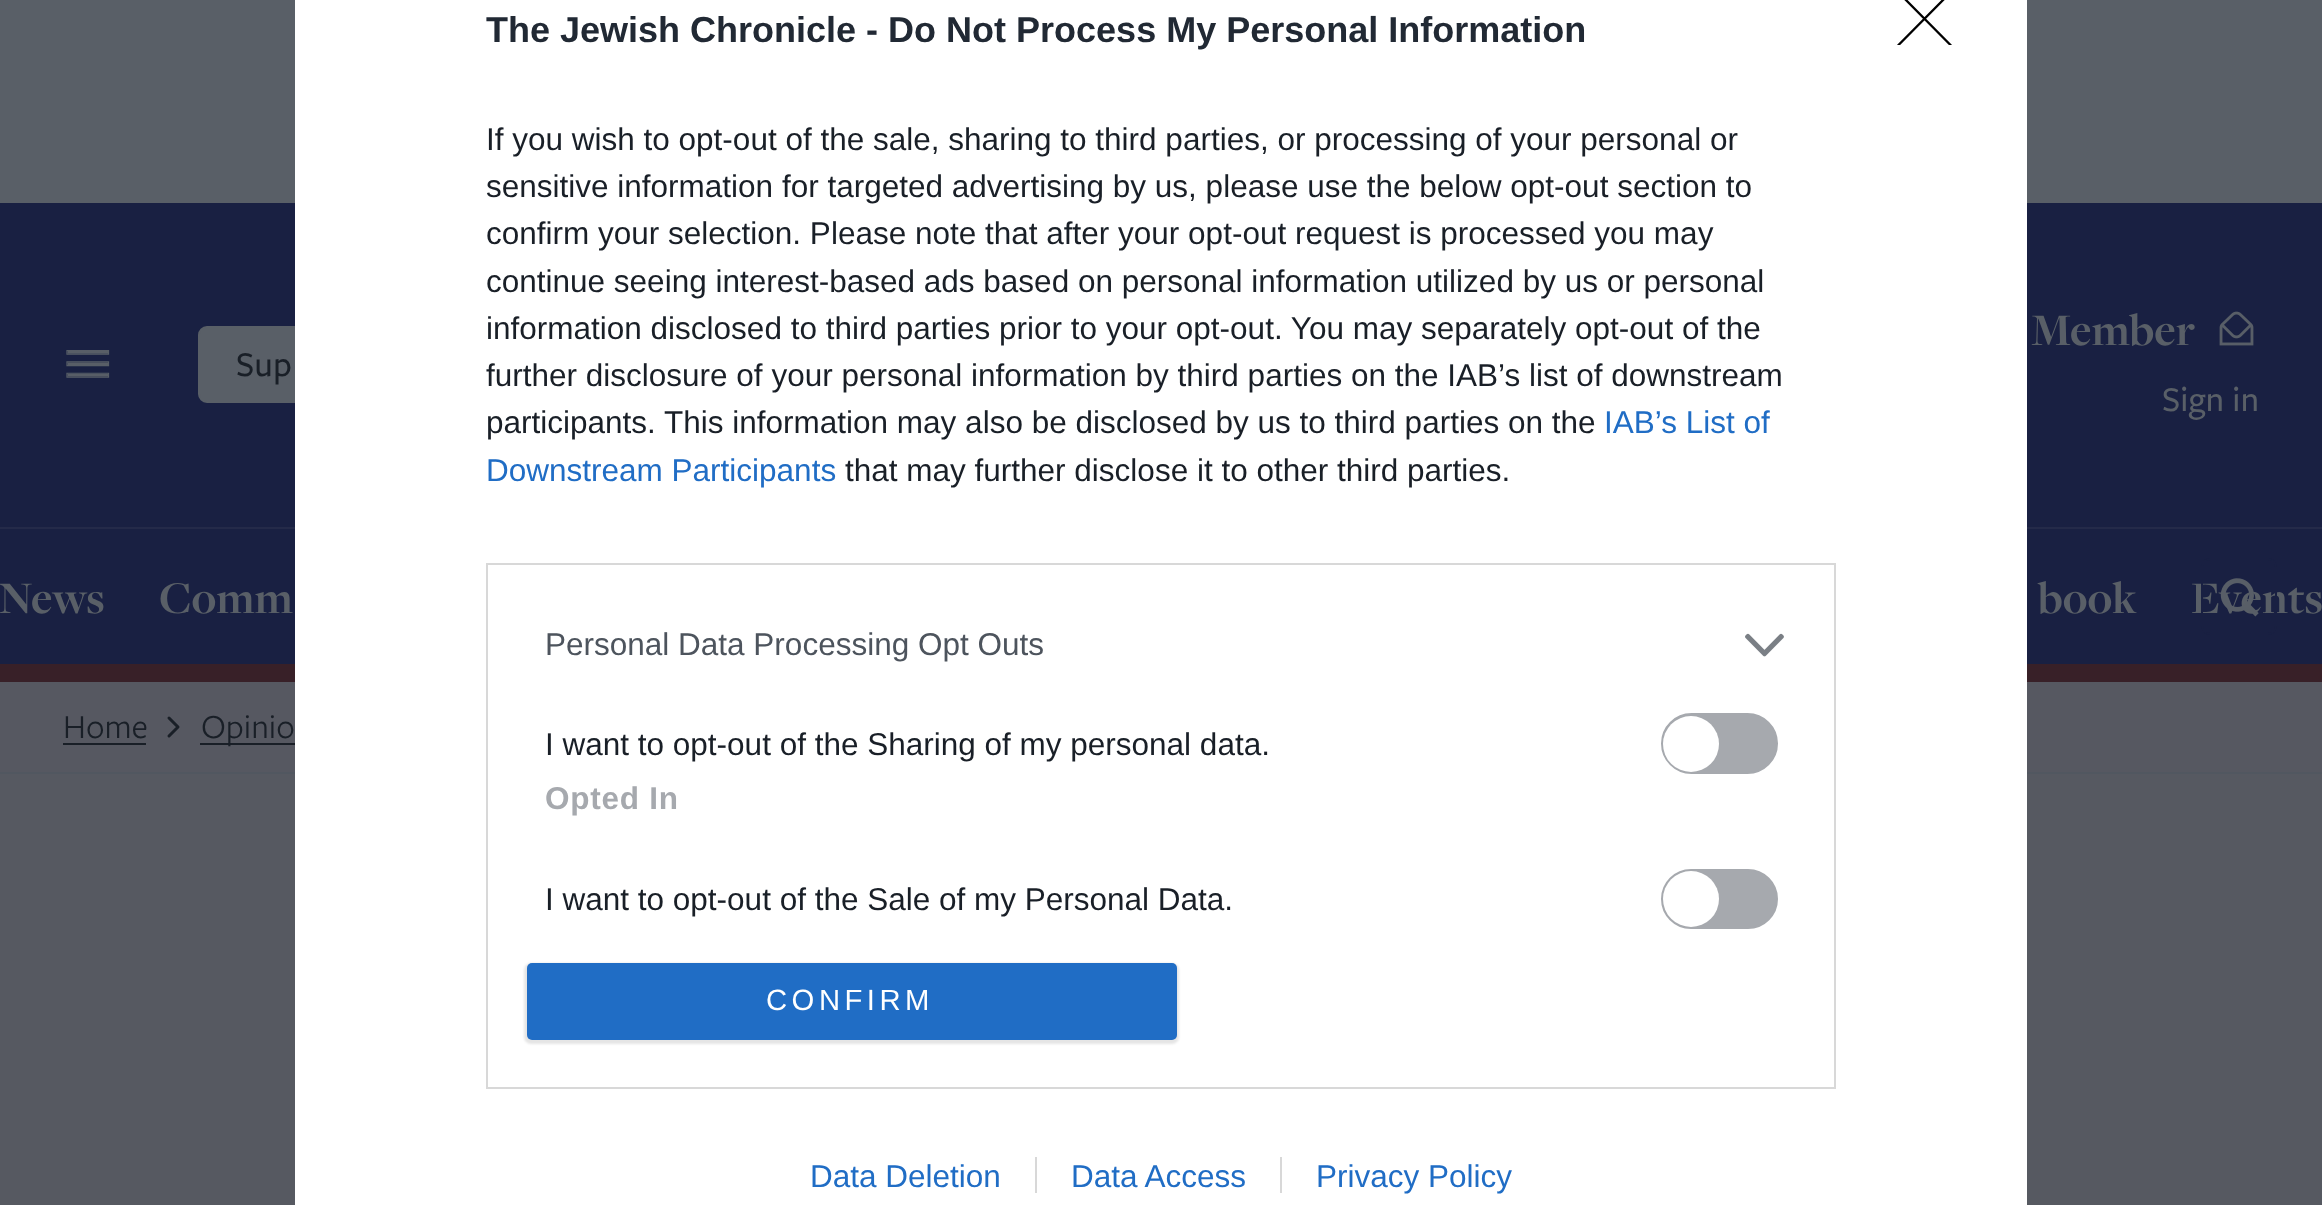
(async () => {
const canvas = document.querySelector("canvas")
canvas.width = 2322
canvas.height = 1205
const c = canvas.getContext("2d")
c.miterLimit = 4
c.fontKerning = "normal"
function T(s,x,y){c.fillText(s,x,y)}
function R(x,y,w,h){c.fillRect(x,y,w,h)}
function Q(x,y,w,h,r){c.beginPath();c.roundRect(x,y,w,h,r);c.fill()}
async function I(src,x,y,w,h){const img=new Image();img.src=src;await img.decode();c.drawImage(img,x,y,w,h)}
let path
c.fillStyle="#595f67"
R(0,0,2322,1205)
c.fillStyle="#192042"
R(0,203,2322,324)
c.fillStyle="#595f67"
c.beginPath()
c.roundRect(199,327,336,75,8)
c.fill()
c.strokeStyle="#595f67"
c.lineWidth=2
c.stroke()
c.fillStyle="#192042"
R(0,529,2322,135)
c.fillStyle="#242a49"
R(0,527,2322,2)
c.fillStyle="#382028"
R(0,664,2322,18)
c.fillStyle="#565861"
R(0,682,2322,90)
c.fillStyle="#515760"
R(0,772,2322,2)
c.fillStyle="#565961"
R(0,774,2322,431)
c.fillStyle="#fff"
R(295,0,1732,1205)
c.font="bold 36px Liberation Sans"
c.fillStyle="#212934"
T("The Jewish Chronicle - Do Not Process My Personal Information",486,42)
c.font="31.5px Liberation Sans"
c.fillStyle="#191f27"
T("If you wish to opt-out of the sale, sharing to third parties, or processing of your personal or",486,150)
T("sensitive information for targeted advertising by us, please use the below opt-out section to",486,197)
T("confirm your selection. Please note that after your opt-out request is processed you may",486,244)
T("continue seeing interest-based ads based on personal information utilized by us or personal",486,292)
T("information disclosed to third parties prior to your opt-out. You may separately opt-out of the",486,339)
T("further disclosure of your personal information by third parties on the IAB’s list of downstream",486,386)
T("participants. This information may also be disclosed by us to third parties on the",486,433)
c.fillStyle="#206dc5"
T("IAB’s List of",1604,433)
T("Downstream Participants",486,481)
c.fillStyle="#191f27"
T("that may further disclose it to other third parties.",845,481)
c.strokeStyle="#d8d8d8"
c.strokeRect(487,564,1348,524)
c.fillStyle="#4d545d"
T("Personal Data Processing Opt Outs",545,655)
await I("1.png",1745,633,39,24)
c.fillStyle="#191f27"
T("I want to opt-out of the Sharing of my personal data.",545,755)
c.fillStyle="#a6a9ae"
c.beginPath()
c.roundRect(1662,714,115,59,29.5)
c.fill()
c.strokeStyle="#a6a9ae"
c.stroke()
c.fillStyle="#fff"
c.beginPath()
c.arc(1691,744,28,0,7)
c.fill()
c.letterSpacing="0.75px"
c.font="bold 31.5px Liberation Sans"
c.fillStyle="#a6a9ae"
T("Opted In",545,809)
c.letterSpacing="0px"
c.font="31.5px Liberation Sans"
c.fillStyle="#191f27"
T("I want to opt-out of the Sale of my Personal Data.",545,910)
c.fillStyle="#a6a9ae"
c.beginPath()
c.roundRect(1662,870,115,58,29)
c.fill()
c.stroke()
c.fillStyle="#fff"
c.beginPath()
c.arc(1691,899,28,0,7)
c.fill()
c.fillStyle="#0000001a"
c.filter="blur(1px)"
c.beginPath()
c.roundRect(524,963,655,81,7)
c.fill()
c.filter="none"
c.fillStyle="#206dc5"
Q(527,963,650,77,5)
c.letterSpacing="4.5px"
c.font="29.25px Liberation Sans"
c.fillStyle="#fff"
T("CONFIRM",766,1010)
c.save()
c.beginPath()
c.rect(1897,0,56,45)
c.clip()
path = new Path2D("M1898-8l53 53.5m0-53.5l-53 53.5")
c.strokeStyle="#000"
c.lineWidth=2.3
c.lineCap="round"
c.lineJoin="round"
c.stroke(path)
c.restore()
c.letterSpacing="0px"
c.font="31.5px Liberation Sans"
c.fillStyle="#206dc5"
T("Data Deletion",810,1187)
T("Data Access",1071,1187)
c.fillStyle="#d8d8d8"
R(1035,1157,2,36)
c.fillStyle="#206dc5"
T("Privacy Policy",1316,1187)
c.fillStyle="#d8d8d8"
R(1280,1157,2,36)
await I("2.png",66,350,44,28)
c.font="500 36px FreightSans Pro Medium"
c.fillStyle="#191f27"
T("Sup",236,376)
c.font="bold 47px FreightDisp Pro"
c.fillStyle="#595f67"
T("Member",2031,345)
await I("3.png",2219,311,35,35)
c.font="500 36px FreightSans Pro Medium"
T("Sign in",2162,411)
c.font="bold 47px FreightDisp Pro"
T("Events",2191,613)
c.beginPath()
c.roundRect(2202,559,74,75,8)
c.strokeStyle="#192042"
c.stroke()
await I("4.png",2220,578,39,39)
T("News",-1,613)
T("Comm",159,613)
T("book",2038,613)
c.font="35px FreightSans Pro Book"
c.fillStyle="#191f27"
T("Home",63,738)
R(63,743,83,2)
path = new Path2D("M169 736l9-9l-9-9")
c.strokeStyle="#191f27"
c.lineWidth=3
c.lineCap="round"
c.lineJoin="round"
c.stroke(path)
R(200,743,95,2)
T("Opinio",201,738)
})()
